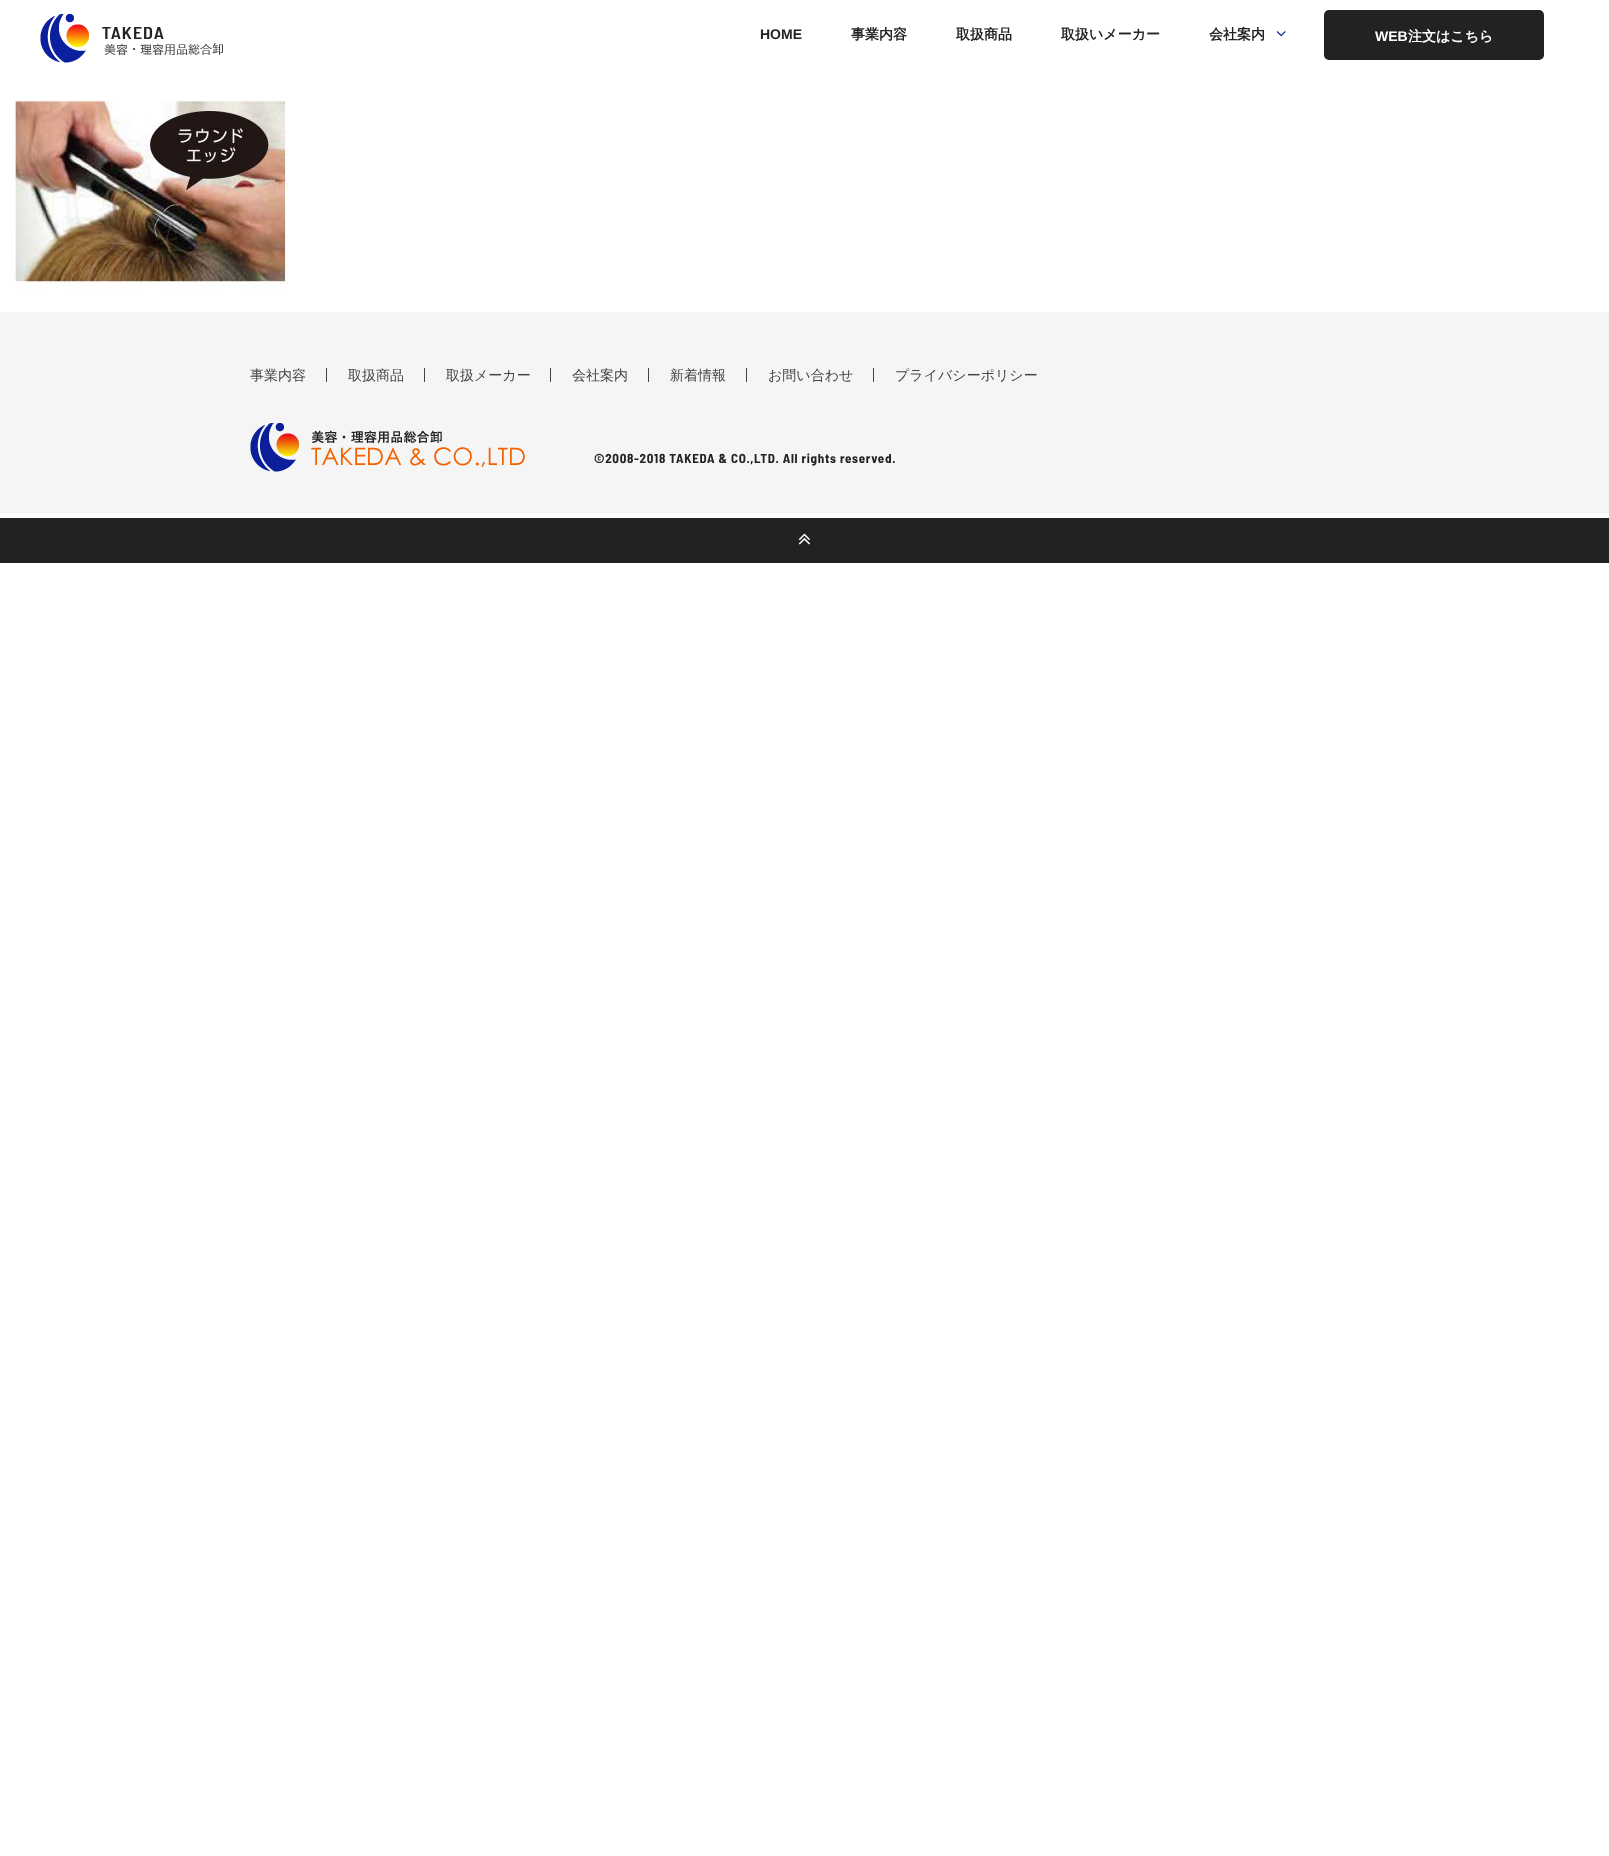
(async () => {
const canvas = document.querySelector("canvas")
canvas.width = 1609
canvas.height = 1856
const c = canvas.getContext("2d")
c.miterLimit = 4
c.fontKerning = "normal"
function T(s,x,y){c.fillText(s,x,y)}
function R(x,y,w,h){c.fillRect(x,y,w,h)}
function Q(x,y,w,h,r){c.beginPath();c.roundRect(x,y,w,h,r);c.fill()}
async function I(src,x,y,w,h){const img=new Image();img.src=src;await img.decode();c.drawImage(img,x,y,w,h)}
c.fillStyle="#fff"
R(0,0,1609,1856)
await I("1.png",40,13,183,50)
c.font="bold 14px Liberation Sans"
c.fillStyle="#222"
T("HOME",760,39)
c.font="bold 14px WenQuanYi Zen Hei"
T("事業内容",851,39)
T("取扱商品",956,39)
T("取扱いメーカー",1061,39)
T("会社案内",1209,39)
await I("2.png",1276,31,10,6)
Q(1324,10,220,50,5)
c.font="bold 14px Liberation Sans"
c.fillStyle="#fff"
T("WEB",1375,41)
c.font="bold 14px WenQuanYi Zen Hei"
T("注文はこちら",1408,41)
await I("3.png",10,100,278,192)
c.fillStyle="#f5f5f5"
R(0,312,1609,201)
c.font="500 14px WenQuanYi Zen Hei"
c.fillStyle="#444"
T("事業内容",250,380)
R(326,368,1,14)
T("取扱商品",348,380)
R(424,368,1,14)
T("取扱メーカー",446,380)
R(550,368,1,14)
T("会社案内",572,380)
R(648,368,1,14)
T("新着情報",670,380)
R(746,368,1,14)
T("お問い合わせ",768,380)
R(873,368,1,14)
T("プライバシーポリシー",895,380)
await I("4.png",250,422,275,50)
c.letterSpacing="0.7px"
c.font="bold 13px Barlow Semi Condensed"
c.fillStyle="#222"
T("©2008-2018 TAKEDA & CO.,LTD. All rights reserved.",594,463)
R(0,518,1609,45)
await I("5.png",798,533,12,12)
})()
